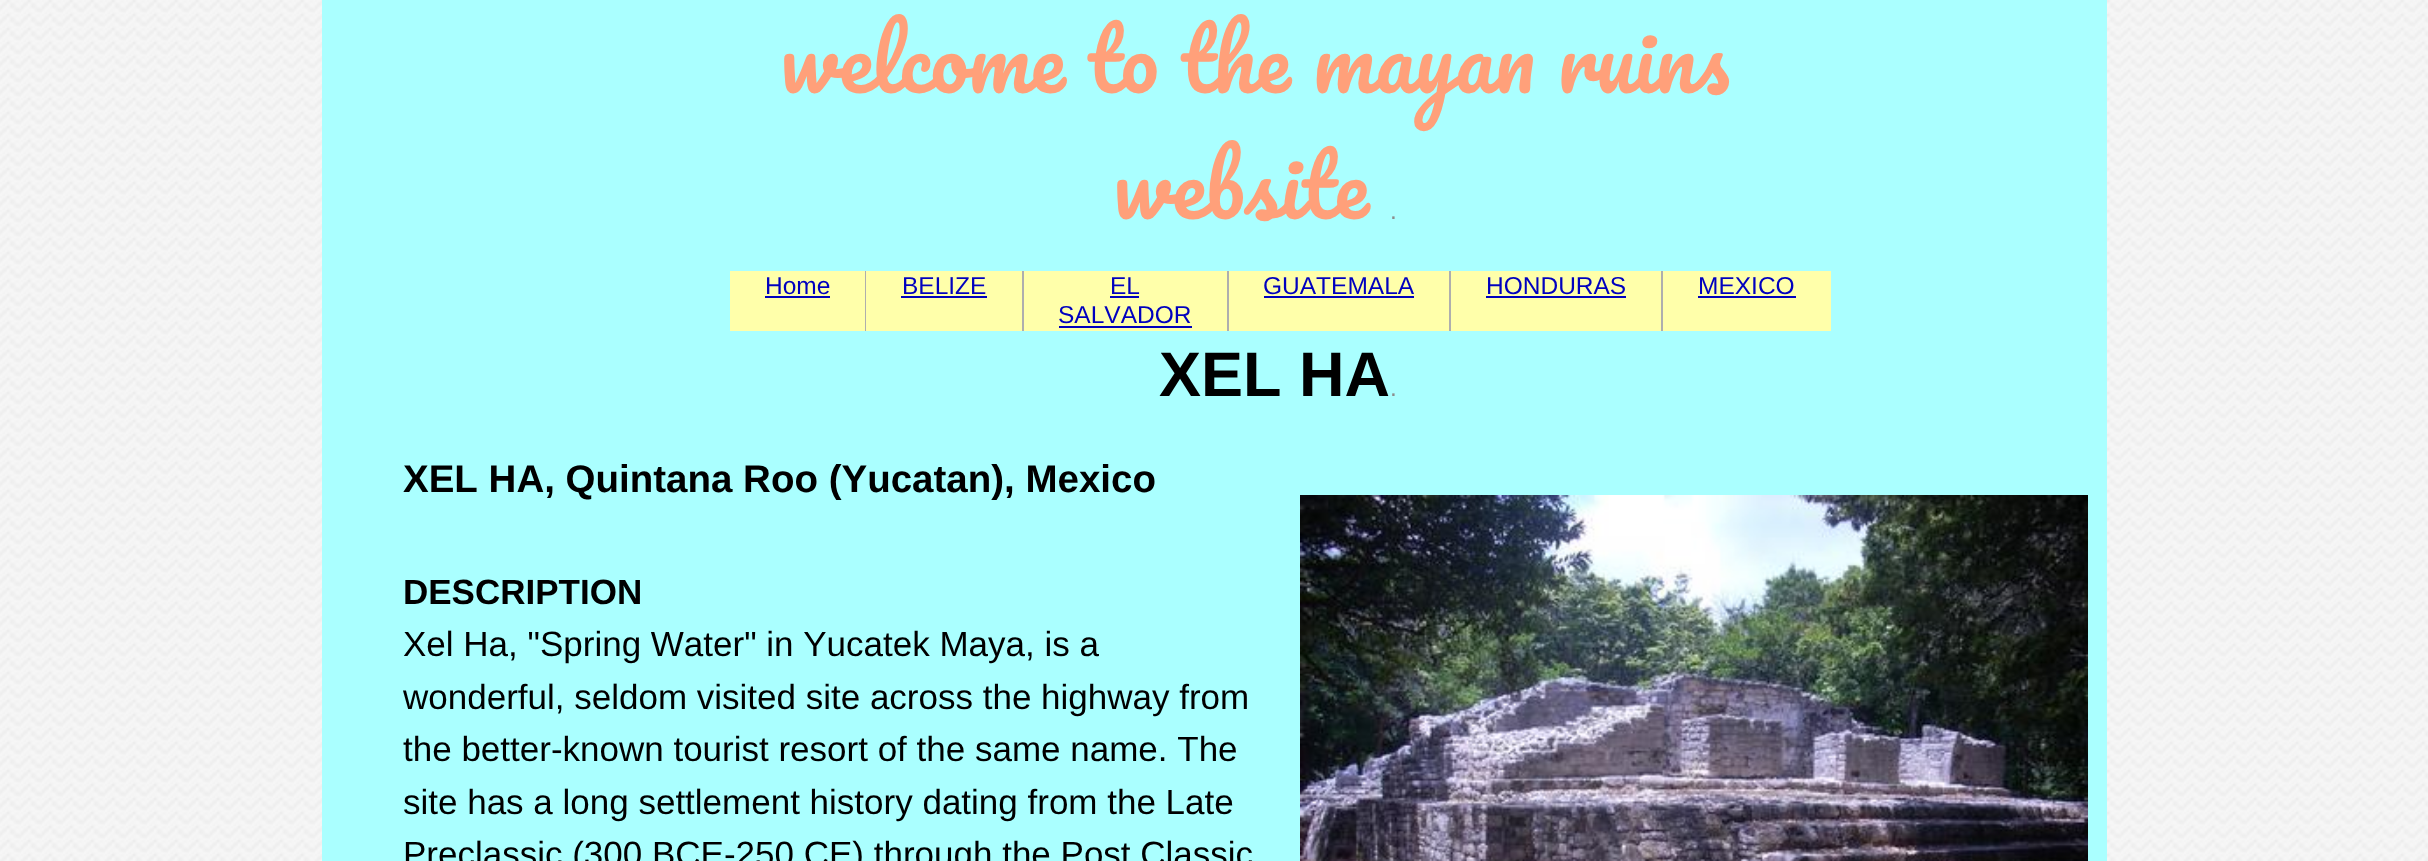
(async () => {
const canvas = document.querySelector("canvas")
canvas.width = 2428
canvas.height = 861
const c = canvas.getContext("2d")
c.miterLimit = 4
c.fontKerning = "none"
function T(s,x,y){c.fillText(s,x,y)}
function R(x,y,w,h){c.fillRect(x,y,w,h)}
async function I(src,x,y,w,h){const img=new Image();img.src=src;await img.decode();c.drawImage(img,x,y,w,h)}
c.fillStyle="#fff"
R(0,0,2428,861)
await I("1.png",0,0,2428,861)
c.fillStyle="#aff"
R(322,0,1785,861)
c.font="84px Pacifico"
c.fillStyle="#ffa07a"
T("welcome to the mayan ruins",780,93)
T("website",1113,219)
c.font="24.5px Liberation Sans"
c.fillStyle="#8c8c8c"
T(".",1390,219)
c.fillStyle="#ffa"
R(730,271,135,60)
c.fillStyle="#aeaeae"
R(865,271,1,60)
c.fillStyle="#0000bf"
T("Home",765,294)
R(765,296,65,2)
c.fillStyle="#ffa"
R(866,271,156,60)
c.fillStyle="#aeaeae"
R(1022,271,2,60)
c.fillStyle="#0000bf"
T("BELIZE",902,294)
R(901,296,86,2)
c.fillStyle="#ffa"
R(1024,271,203,60)
c.fillStyle="#aeaeae"
R(1227,271,2,60)
c.fillStyle="#0000bf"
T("EL",1110,294)
R(1110,296,29,2)
T("SALVADOR",1058,323)
R(1059,326,133,2)
c.fillStyle="#ffa"
R(1229,271,220,60)
c.fillStyle="#aeaeae"
R(1449,271,2,60)
c.fillStyle="#0000bf"
T("GUATEMALA",1263,294)
R(1264,296,150,2)
c.fillStyle="#ffa"
R(1451,271,210,60)
c.fillStyle="#aeaeae"
R(1661,271,2,60)
c.fillStyle="#0000bf"
T("HONDURAS",1486,294)
R(1486,296,140,2)
c.fillStyle="#ffa"
R(1663,271,168,60)
c.fillStyle="#0000bf"
T("MEXICO",1698,294)
R(1698,296,98,2)
c.font="bold 63px Liberation Sans"
c.fillStyle="#000"
T("XEL HA",1159,396)
c.font="24.5px Liberation Sans"
c.fillStyle="#8c8c8c"
T(".",1390,396)
c.font="bold 38.5px Liberation Sans"
c.fillStyle="#000"
T("XEL HA, Quintana Roo (Yucatan), Mexico",403,492)
c.font="bold 35px Liberation Sans"
T("DESCRIPTION",403,604)
c.font="35px Liberation Sans"
T("Xel Ha, \"Spring Water\" in Yucatek Maya, is a",403,656)
T("wonderful, seldom visited site across the highway from",403,709)
T("the better-known tourist resort of the same name. The",403,761)
T("site has a long settlement history dating from the Late",403,814)
T("Preclassic (300 BCE-250 CE) through the Post Classic",403,866)
await I("2.png",1300,495,788,366)
})()
